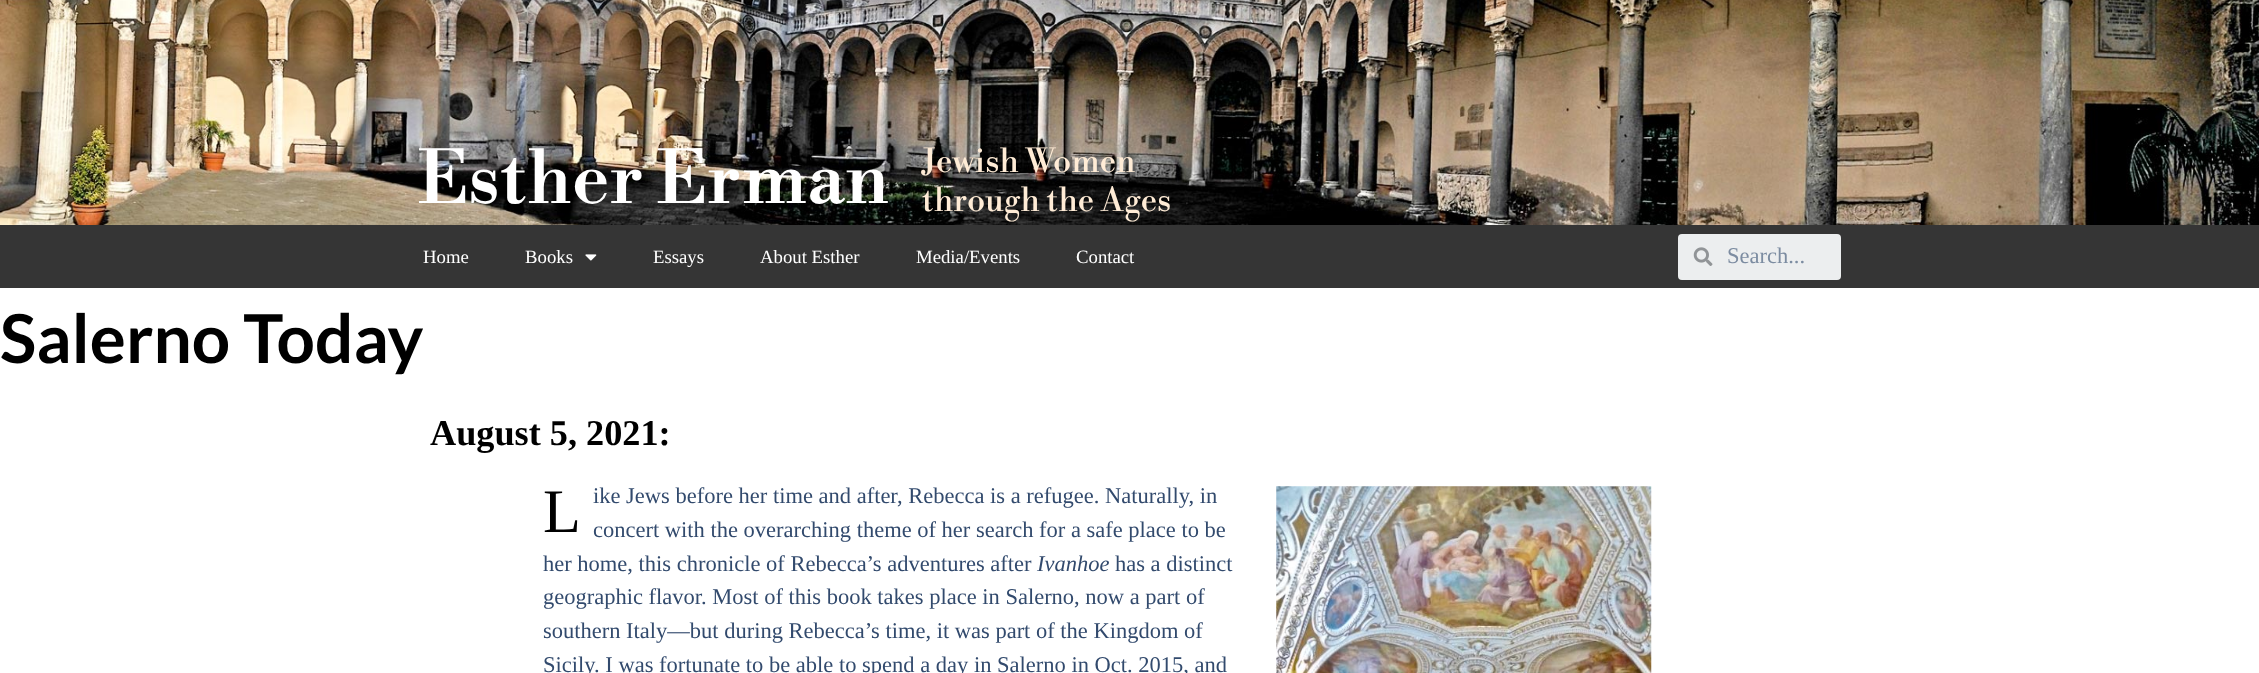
(async () => {
const canvas = document.querySelector("canvas")
canvas.width = 2259
canvas.height = 673
const c = canvas.getContext("2d")
c.miterLimit = 4
c.fontKerning = "normal"
function T(s,x,y){c.fillText(s,x,y)}
function R(x,y,w,h){c.fillRect(x,y,w,h)}
function Q(x,y,w,h,r){c.beginPath();c.roundRect(x,y,w,h,r);c.fill()}
async function I(src,x,y,w,h){const img=new Image();img.src=src;await img.decode();c.drawImage(img,x,y,w,h)}
c.fillStyle="#fff"
R(0,0,2259,673)
await I("1.png",0,0,2259,225)
c.font="500 72.5px Libre Bodoni"
T("Esther Erman",418,203)
c.font="32.5px Libre Bodoni"
c.fillStyle="#ffecd6"
T("Jewish Women",922,172)
T("through the Ages",922,211)
c.fillStyle="#353535"
R(0,225,2259,63)
c.font="18.75px Liberation Serif"
c.fillStyle="#fff"
T("Home",423,263)
T("Books",525,263)
await I("2.png",585,254,12,7)
T("Essays",653,263)
T("About Esther",760,263)
T("Media/Events",916,263)
T("Contact",1076,263)
c.fillStyle="#eceeef"
Q(1678,234,163,46,4)
await I("3.png",1693,247,20,19)
c.font="22.5px Liberation Serif"
c.fillStyle="#7c8ca1"
T("Search...",1727,263)
c.font="bold 67.5px Lato"
c.fillStyle="#000"
T("Salerno Today",0,363)
c.font="bold 36.25px Liberation Serif"
T("August 5, 2021:",430,445)
c.font="62px Liberation Serif"
T("L",543,532)
c.font="22.5px Liberation Serif"
c.fillStyle="#324a6d"
T("ike Jews before her time and after, Rebecca is a refugee. Naturally, in",593,503)
T("concert with the overarching theme of her search for a safe place to be",593,537)
T("her home, this chronicle of Rebecca’s adventures after",543,571)
c.font="italic 22.5px Liberation Serif"
T("Ivanhoe",1037,571)
c.font="22.5px Liberation Serif"
T("has a distinct",1115,571)
T("geographic flavor. Most of this book takes place in Salerno, now a part of",543,604)
T("southern Italy—but during Rebecca’s time, it was part of the Kingdom of",543,638)
T("Sicily. I was fortunate to be able to spend a day in Salerno in Oct. 2015, and",543,672)
await I("4.png",1276,486,376,187)
})()
